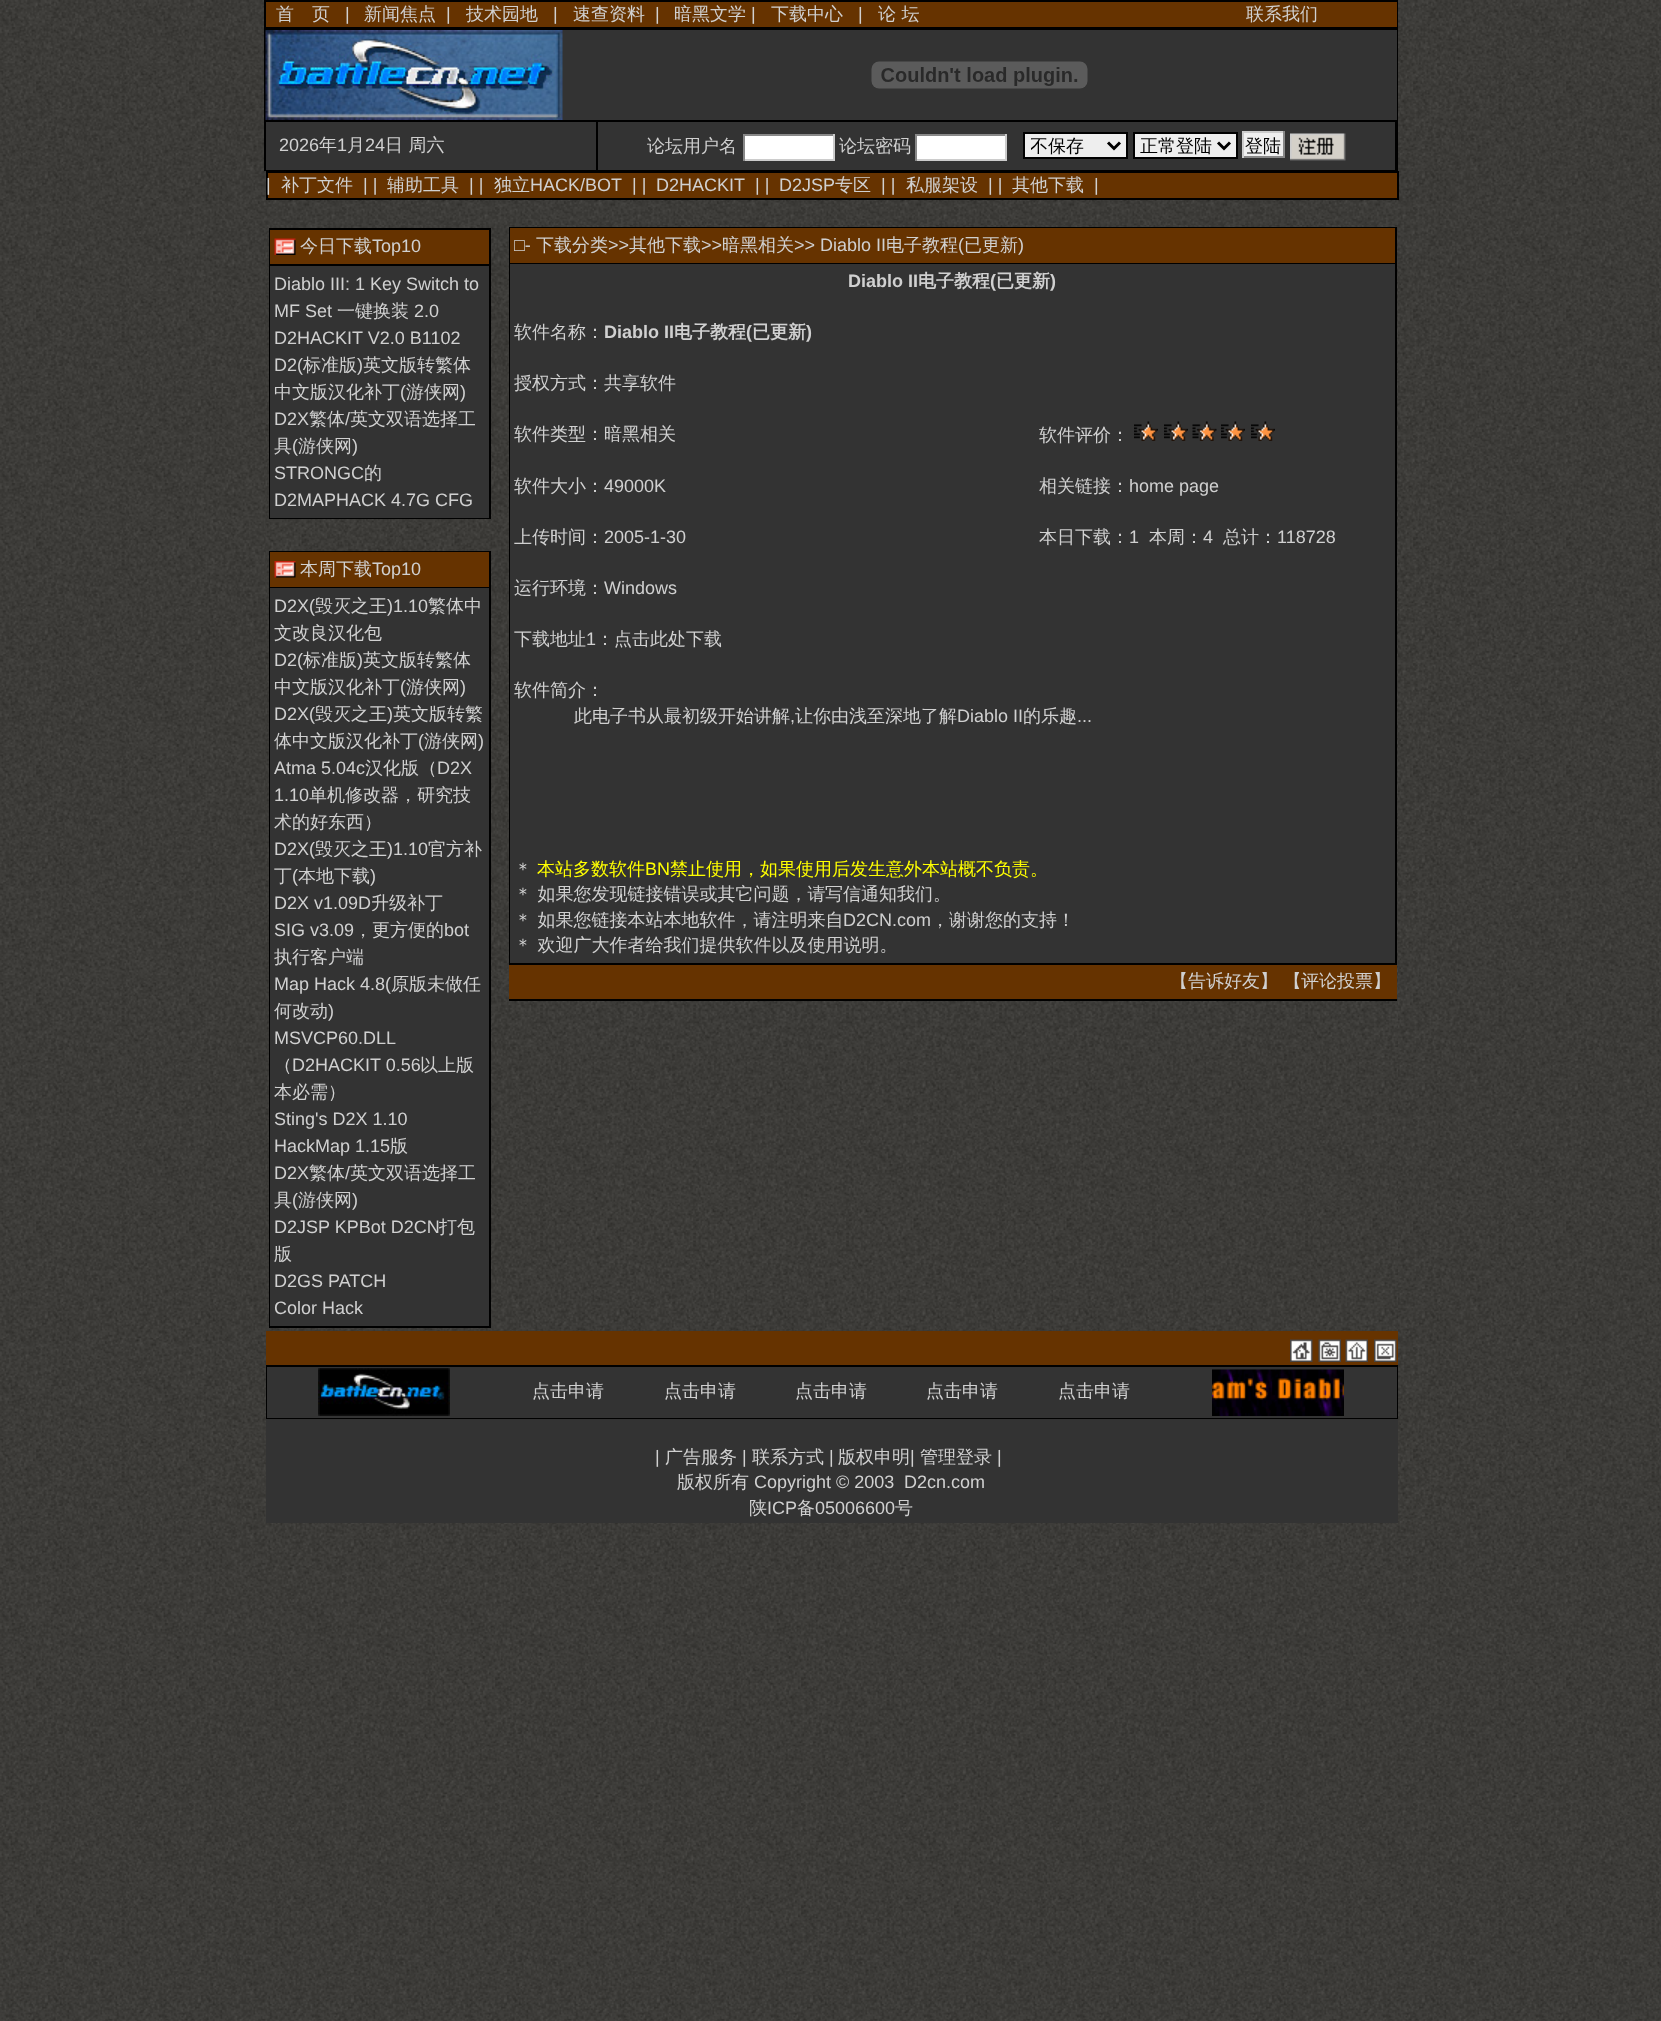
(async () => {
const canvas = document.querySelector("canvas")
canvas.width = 1661
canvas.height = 2021
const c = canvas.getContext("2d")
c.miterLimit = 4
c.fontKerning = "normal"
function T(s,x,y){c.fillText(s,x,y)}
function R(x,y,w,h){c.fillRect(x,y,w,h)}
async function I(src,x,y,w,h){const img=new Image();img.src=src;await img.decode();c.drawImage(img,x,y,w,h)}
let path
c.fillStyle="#fff"
R(0,0,1661,2021)
await I("1.png",0,0,1661,2021)
c.fillStyle="#000"
R(264,0,1134,171)
c.fillStyle="#630"
R(266,2,1131,25)
c.font="500 18px WenQuanYi Zen Hei"
c.fillStyle="#d0d0d0"
T("首　页",276,20)
c.font="18px Liberation Sans"
T("|",345,20)
c.font="500 18px WenQuanYi Zen Hei"
T("新闻焦点",364,20)
c.font="18px Liberation Sans"
T("|",446,20)
c.font="500 18px WenQuanYi Zen Hei"
T("技术园地",466,20)
c.font="18px Liberation Sans"
T("|",553,20)
c.font="500 18px WenQuanYi Zen Hei"
T("速查资料",573,20)
c.font="18px Liberation Sans"
T("|",655,20)
c.font="500 18px WenQuanYi Zen Hei"
T("暗黑文学",674,20)
c.font="18px Liberation Sans"
T("|",751,20)
c.font="500 18px WenQuanYi Zen Hei"
T("下载中心",771,20)
c.font="18px Liberation Sans"
T("|",858,20)
c.font="500 18px WenQuanYi Zen Hei"
T("论 坛",878,20)
T("联系我们",1246,20)
c.fillStyle="#333"
R(562,30,835,90)
await I("2.png",265,30,298,90)
await I("3.png",871,61,217,28)
R(266,122,1129,48)
c.font="18px Liberation Sans"
c.fillStyle="#d0d0d0"
T("2026",279,151)
c.font="500 18px WenQuanYi Zen Hei"
T("年",319,151)
c.font="18px Liberation Sans"
T("1",337,151)
c.font="500 18px WenQuanYi Zen Hei"
T("月",347,151)
c.font="18px Liberation Sans"
T("24",365,151)
c.font="500 18px WenQuanYi Zen Hei"
T("日 周六",385,151)
c.fillStyle="#000"
R(596,122,2,48)
c.fillStyle="#d0d0d0"
T("论坛用户名",647,152)
c.fillStyle="#fff"
R(745,136,88,23)
c.fillStyle="#888"
R(743,134,91,2)
c.fillStyle="#ccc"
R(833,134,2,27)
R(743,159,91,2)
c.fillStyle="#888"
R(743,134,2,27)
c.fillStyle="#d0d0d0"
T("论坛密码",839,152)
c.fillStyle="#fff"
R(917,136,88,23)
c.fillStyle="#888"
R(915,134,92,2)
c.fillStyle="#ccc"
R(1005,134,2,27)
R(915,159,92,2)
c.fillStyle="#888"
R(915,134,2,27)
c.fillStyle="#eee"
c.beginPath()
c.rect(1024,133,103,25)
c.fill()
c.strokeStyle="#000"
c.lineWidth=2
c.stroke()
path = new Path2D("M1108 142.5l6 6l6-6")
c.lineWidth=3
c.stroke(path)
c.save()
c.beginPath()
c.rect(1031,134,72,24)
c.clip()
c.fillStyle="#000"
T("不保存",1030,152)
c.restore()
c.beginPath()
c.rect(1134,133,103,25)
c.fill()
c.lineWidth=2
c.stroke()
path = new Path2D("M1218 142.5l6 6l6-6")
c.lineWidth=3
c.stroke(path)
c.fillStyle="#000"
T("正常登陆",1140,152)
c.fillStyle="#efefef"
R(1244,133,39,23)
c.fillStyle="#ccc"
R(1242,131,42,2)
c.fillStyle="#888"
R(1283,131,2,27)
R(1242,156,42,2)
c.fillStyle="#ccc"
R(1242,131,2,27)
c.fillStyle="#000"
T("登陆",1245,152)
await I("4.png",1290,133,56,28)
c.fillStyle="#630"
R(268,173,1129,25)
c.fillStyle="#000"
R(266,171,1132,2)
R(1397,171,2,29)
R(266,198,1132,2)
R(266,171,2,29)
c.font="18px Liberation Sans"
c.fillStyle="#d0d0d0"
T("|",266,191)
c.font="500 18px WenQuanYi Zen Hei"
T("补丁文件",281,191)
c.font="18px Liberation Sans"
T("| |",363,191)
c.font="500 18px WenQuanYi Zen Hei"
T("辅助工具",387,191)
c.font="18px Liberation Sans"
T("| |",469,191)
c.font="500 18px WenQuanYi Zen Hei"
T("独立",494,191)
c.font="18px Liberation Sans"
T("HACK/BOT",530,191)
T("| |",632,191)
T("D2HACKIT",656,191)
T("| |",755,191)
T("D2JSP",779,191)
c.font="500 18px WenQuanYi Zen Hei"
T("专区",835,191)
c.font="18px Liberation Sans"
T("| |",881,191)
c.font="500 18px WenQuanYi Zen Hei"
T("私服架设",906,191)
c.font="18px Liberation Sans"
T("| |",988,191)
c.font="500 18px WenQuanYi Zen Hei"
T("其他下载",1012,191)
c.font="18px Liberation Sans"
T("|",1094,191)
await I("5.png",265,225,1133,1106)
c.fillStyle="#000"
R(269,228,222,291)
c.fillStyle="#630"
R(270,230,219,34)
await I("6.png",274,238,22,17)
c.font="500 18px WenQuanYi Zen Hei"
c.fillStyle="#d0d0d0"
T("今日下载",300,252)
c.font="18px Liberation Sans"
T("Top10",372,252)
c.fillStyle="#333"
R(270,266,219,252)
c.fillStyle="#d0d0d0"
T("Diablo III: 1 Key Switch to",274,290)
T("MF Set",274,317)
c.font="500 18px WenQuanYi Zen Hei"
T("一键换装",337,317)
c.font="18px Liberation Sans"
T("2.0",414,317)
T("D2HACKIT V2.0 B1102",274,344)
T("D2(",274,371)
c.font="500 18px WenQuanYi Zen Hei"
T("标准版",303,371)
c.font="18px Liberation Sans"
T(")",357,371)
c.font="500 18px WenQuanYi Zen Hei"
T("英文版转繁体",363,371)
T("中文版汉化补丁",274,398)
c.font="18px Liberation Sans"
T("(",400,398)
c.font="500 18px WenQuanYi Zen Hei"
T("游侠网",406,398)
c.font="18px Liberation Sans"
T(")",460,398)
T("D2X",274,425)
c.font="500 18px WenQuanYi Zen Hei"
T("繁体",309,425)
c.font="18px Liberation Sans"
T("/",345,425)
c.font="500 18px WenQuanYi Zen Hei"
T("英文双语选择工",350,425)
T("具",274,452)
c.font="18px Liberation Sans"
T("(",292,452)
c.font="500 18px WenQuanYi Zen Hei"
T("游侠网",298,452)
c.font="18px Liberation Sans"
T(")",352,452)
T("STRONGC",274,479)
c.font="500 18px WenQuanYi Zen Hei"
T("的",364,479)
c.font="18px Liberation Sans"
T("D2MAPHACK 4.7G CFG",274,506)
c.fillStyle="#000"
R(269,551,222,777)
c.fillStyle="#630"
R(270,552,219,35)
await I("7.png",274,561,22,17)
c.font="500 18px WenQuanYi Zen Hei"
c.fillStyle="#d0d0d0"
T("本周下载",300,575)
c.font="18px Liberation Sans"
T("Top10",372,575)
c.fillStyle="#333"
R(270,588,219,738)
c.fillStyle="#d0d0d0"
T("D2X(",274,612)
c.font="500 18px WenQuanYi Zen Hei"
T("毁灭之王",315,612)
c.font="18px Liberation Sans"
T(")1.10",387,612)
c.font="500 18px WenQuanYi Zen Hei"
T("繁体中",428,612)
T("文改良汉化包",274,639)
c.font="18px Liberation Sans"
T("D2(",274,666)
c.font="500 18px WenQuanYi Zen Hei"
T("标准版",303,666)
c.font="18px Liberation Sans"
T(")",357,666)
c.font="500 18px WenQuanYi Zen Hei"
T("英文版转繁体",363,666)
T("中文版汉化补丁",274,693)
c.font="18px Liberation Sans"
T("(",400,693)
c.font="500 18px WenQuanYi Zen Hei"
T("游侠网",406,693)
c.font="18px Liberation Sans"
T(")",460,693)
T("D2X(",274,720)
c.font="500 18px WenQuanYi Zen Hei"
T("毁灭之王",315,720)
c.font="18px Liberation Sans"
T(")",387,720)
c.font="500 18px WenQuanYi Zen Hei"
T("英文版转繁",393,720)
T("体中文版汉化补丁",274,747)
c.font="18px Liberation Sans"
T("(",418,747)
c.font="500 18px WenQuanYi Zen Hei"
T("游侠网",424,747)
c.font="18px Liberation Sans"
T(")",478,747)
T("Atma 5.04c",274,774)
c.font="500 18px WenQuanYi Zen Hei"
T("汉化版（",365,774)
c.font="18px Liberation Sans"
T("D2X",437,774)
T("1.10",274,801)
c.font="500 18px WenQuanYi Zen Hei"
T("单机修改器，研究技",309,801)
T("术的好东西）",274,828)
c.font="18px Liberation Sans"
T("D2X(",274,855)
c.font="500 18px WenQuanYi Zen Hei"
T("毁灭之王",315,855)
c.font="18px Liberation Sans"
T(")1.10",387,855)
c.font="500 18px WenQuanYi Zen Hei"
T("官方补",428,855)
T("丁",274,882)
c.font="18px Liberation Sans"
T("(",292,882)
c.font="500 18px WenQuanYi Zen Hei"
T("本地下载",298,882)
c.font="18px Liberation Sans"
T(")",370,882)
T("D2X v1.09D",274,909)
c.font="500 18px WenQuanYi Zen Hei"
T("升级补丁",371,909)
c.font="18px Liberation Sans"
T("SIG v3.09",274,936)
c.font="500 18px WenQuanYi Zen Hei"
T("，更方便的",354,936)
c.font="18px Liberation Sans"
T("bot",444,936)
c.font="500 18px WenQuanYi Zen Hei"
T("执行客户端",274,963)
c.font="18px Liberation Sans"
T("Map Hack 4.8(",274,990)
c.font="500 18px WenQuanYi Zen Hei"
T("原版未做任",391,990)
T("何改动",274,1017)
c.font="18px Liberation Sans"
T(")",328,1017)
T("MSVCP60.DLL",274,1044)
c.font="500 18px WenQuanYi Zen Hei"
T("（",274,1071)
c.font="18px Liberation Sans"
T("D2HACKIT 0.56",292,1071)
c.font="500 18px WenQuanYi Zen Hei"
T("以上版",420,1071)
T("本必需）",274,1098)
c.font="18px Liberation Sans"
T("Sting's D2X 1.10",274,1125)
T("HackMap 1.15",274,1152)
c.font="500 18px WenQuanYi Zen Hei"
T("版",390,1152)
c.font="18px Liberation Sans"
T("D2X",274,1179)
c.font="500 18px WenQuanYi Zen Hei"
T("繁体",309,1179)
c.font="18px Liberation Sans"
T("/",345,1179)
c.font="500 18px WenQuanYi Zen Hei"
T("英文双语选择工",350,1179)
T("具",274,1206)
c.font="18px Liberation Sans"
T("(",292,1206)
c.font="500 18px WenQuanYi Zen Hei"
T("游侠网",298,1206)
c.font="18px Liberation Sans"
T(")",352,1206)
T("D2JSP KPBot D2CN",274,1233)
c.font="500 18px WenQuanYi Zen Hei"
T("打包",439,1233)
T("版",274,1260)
c.font="18px Liberation Sans"
T("D2GS PATCH",274,1287)
T("Color Hack",274,1314)
c.fillStyle="#000"
R(509,227,888,738)
c.fillStyle="#630"
R(510,228,885,35)
c.fillStyle="#d0d0d0"
T("□-",514,251)
c.font="500 18px WenQuanYi Zen Hei"
T("下载分类",536,251)
c.font="18px Liberation Sans"
T(">>",608,251)
c.font="500 18px WenQuanYi Zen Hei"
T("其他下载",629,251)
c.font="18px Liberation Sans"
T(">>",701,251)
c.font="500 18px WenQuanYi Zen Hei"
T("暗黑相关",722,251)
c.font="18px Liberation Sans"
T(">> Diablo II",794,251)
c.font="500 18px WenQuanYi Zen Hei"
T("电子教程",886,251)
c.font="18px Liberation Sans"
T("(",958,251)
c.font="500 18px WenQuanYi Zen Hei"
T("已更新",964,251)
c.font="18px Liberation Sans"
T(")",1018,251)
c.fillStyle="#333"
R(510,264,885,699)
c.font="bold 18px Liberation Sans"
c.fillStyle="#d0d0d0"
T("Diablo II",848,287)
c.font="bold 18px WenQuanYi Zen Hei"
T("电子教程",918,287)
c.font="bold 18px Liberation Sans"
T("(",990,287)
c.font="bold 18px WenQuanYi Zen Hei"
T("已更新",996,287)
c.font="bold 18px Liberation Sans"
T(")",1050,287)
c.font="500 18px WenQuanYi Zen Hei"
T("软件名称：",514,338)
c.font="bold 18px Liberation Sans"
T("Diablo II",604,338)
c.font="bold 18px WenQuanYi Zen Hei"
T("电子教程",674,338)
c.font="bold 18px Liberation Sans"
T("(",746,338)
c.font="bold 18px WenQuanYi Zen Hei"
T("已更新",752,338)
c.font="bold 18px Liberation Sans"
T(")",806,338)
c.font="500 18px WenQuanYi Zen Hei"
T("授权方式：共享软件",514,389)
T("软件类型：暗黑相关",514,440)
T("软件评价：",1039,441)
await I("8.png",1134,421,24,20)
await I("8.png",1164,421,24,20)
await I("9.png",1192,421,25,20)
await I("8.png",1221,421,24,20)
await I("10.png",1251,421,24,20)
T("软件大小：",514,492)
c.font="18px Liberation Sans"
T("49000K",604,492)
c.font="500 18px WenQuanYi Zen Hei"
T("相关链接：",1039,492)
c.font="18px Liberation Sans"
T("home page",1129,492)
c.font="500 18px WenQuanYi Zen Hei"
T("上传时间：",514,543)
c.font="18px Liberation Sans"
T("2005-1-30",604,543)
c.font="500 18px WenQuanYi Zen Hei"
T("本日下载：",1039,543)
c.font="18px Liberation Sans"
T("1",1129,543)
c.font="500 18px WenQuanYi Zen Hei"
T("本周：",1149,543)
c.font="18px Liberation Sans"
T("4",1203,543)
c.font="500 18px WenQuanYi Zen Hei"
T("总计：",1223,543)
c.font="18px Liberation Sans"
T("118728",1277,543)
c.font="500 18px WenQuanYi Zen Hei"
T("运行环境：",514,594)
c.font="18px Liberation Sans"
T("Windows",604,594)
c.font="500 18px WenQuanYi Zen Hei"
T("下载地址",514,645)
c.font="18px Liberation Sans"
T("1",586,645)
c.font="500 18px WenQuanYi Zen Hei"
T("：点击此处下载",596,645)
T("软件简介：",514,696)
T("此电子书从最初级开始讲解",574,722)
c.font="18px Liberation Sans"
T(",",790,722)
c.font="500 18px WenQuanYi Zen Hei"
T("让你由浅至深地了解",795,722)
c.font="18px Liberation Sans"
T("Diablo II",957,722)
c.font="500 18px WenQuanYi Zen Hei"
T("的乐趣",1023,722)
c.font="18px Liberation Sans"
T("...",1077,722)
c.font="500 18px WenQuanYi Zen Hei"
T("＊",514,875)
c.fillStyle="#ff0"
T("本站多数软件",537,875)
c.font="18px Liberation Sans"
T("BN",645,875)
c.font="500 18px WenQuanYi Zen Hei"
T("禁止使用，如果使用后发生意外本站概不负责。",670,875)
c.fillStyle="#d0d0d0"
T("＊ 如果您发现链接错误或其它问题，请",514,900)
T("写信通知我们。",825,900)
T("＊ 如果您链接本站本地软件，请注明来自",514,926)
c.font="18px Liberation Sans"
T("D2CN.com",843,926)
c.font="500 18px WenQuanYi Zen Hei"
T("，谢谢您的支持！",931,926)
T("＊ 欢迎广大作者给我们提供软件以及使用说明。",514,951)
c.fillStyle="#630"
R(509,965,888,34)
c.fillStyle="#000"
R(509,999,888,2)
c.fillStyle="#d0d0d0"
T("【告诉好友】 【",1170,987)
T("评论投票】",1301,987)
c.fillStyle="#000"
R(266,1365,1132,54)
c.fillStyle="#630"
R(266,1331,1132,34)
await I("11.png",1290,1339,23,23)
await I("12.png",1318,1339,23,23)
await I("13.png",1345,1339,23,23)
await I("14.png",1374,1339,23,23)
c.fillStyle="#333"
R(267,1367,1130,51)
await I("15.png",318,1368,132,48)
c.fillStyle="#d0d0d0"
T("点击申请",532,1397)
T("点击申请",664,1397)
T("点击申请",795,1397)
T("点击申请",926,1397)
T("点击申请",1058,1397)
await I("16.png",1212,1369,132,47)
c.fillStyle="#333"
R(266,1419,1132,104)
c.font="18px Liberation Sans"
c.fillStyle="#d0d0d0"
T("|",655,1463)
c.font="500 18px WenQuanYi Zen Hei"
T("广告服务",665,1463)
c.font="18px Liberation Sans"
T("|",742,1463)
c.font="500 18px WenQuanYi Zen Hei"
T("联系方式",752,1463)
c.font="18px Liberation Sans"
T("|",829,1463)
c.font="500 18px WenQuanYi Zen Hei"
T("版权申明",838,1463)
c.font="18px Liberation Sans"
T("|",910,1463)
c.font="500 18px WenQuanYi Zen Hei"
T("管理登录",920,1463)
c.font="18px Liberation Sans"
T("|",997,1463)
c.font="500 18px WenQuanYi Zen Hei"
T("版权所有",677,1488)
c.font="18px Liberation Sans"
T("Copyright © 2003",754,1488)
T("D2cn.com",904,1488)
c.font="500 18px WenQuanYi Zen Hei"
T("陕",749,1514)
c.font="18px Liberation Sans"
T("ICP",767,1514)
c.font="500 18px WenQuanYi Zen Hei"
T("备",797,1514)
c.font="18px Liberation Sans"
T("05006600",815,1514)
c.font="500 18px WenQuanYi Zen Hei"
T("号",895,1514)
})()
